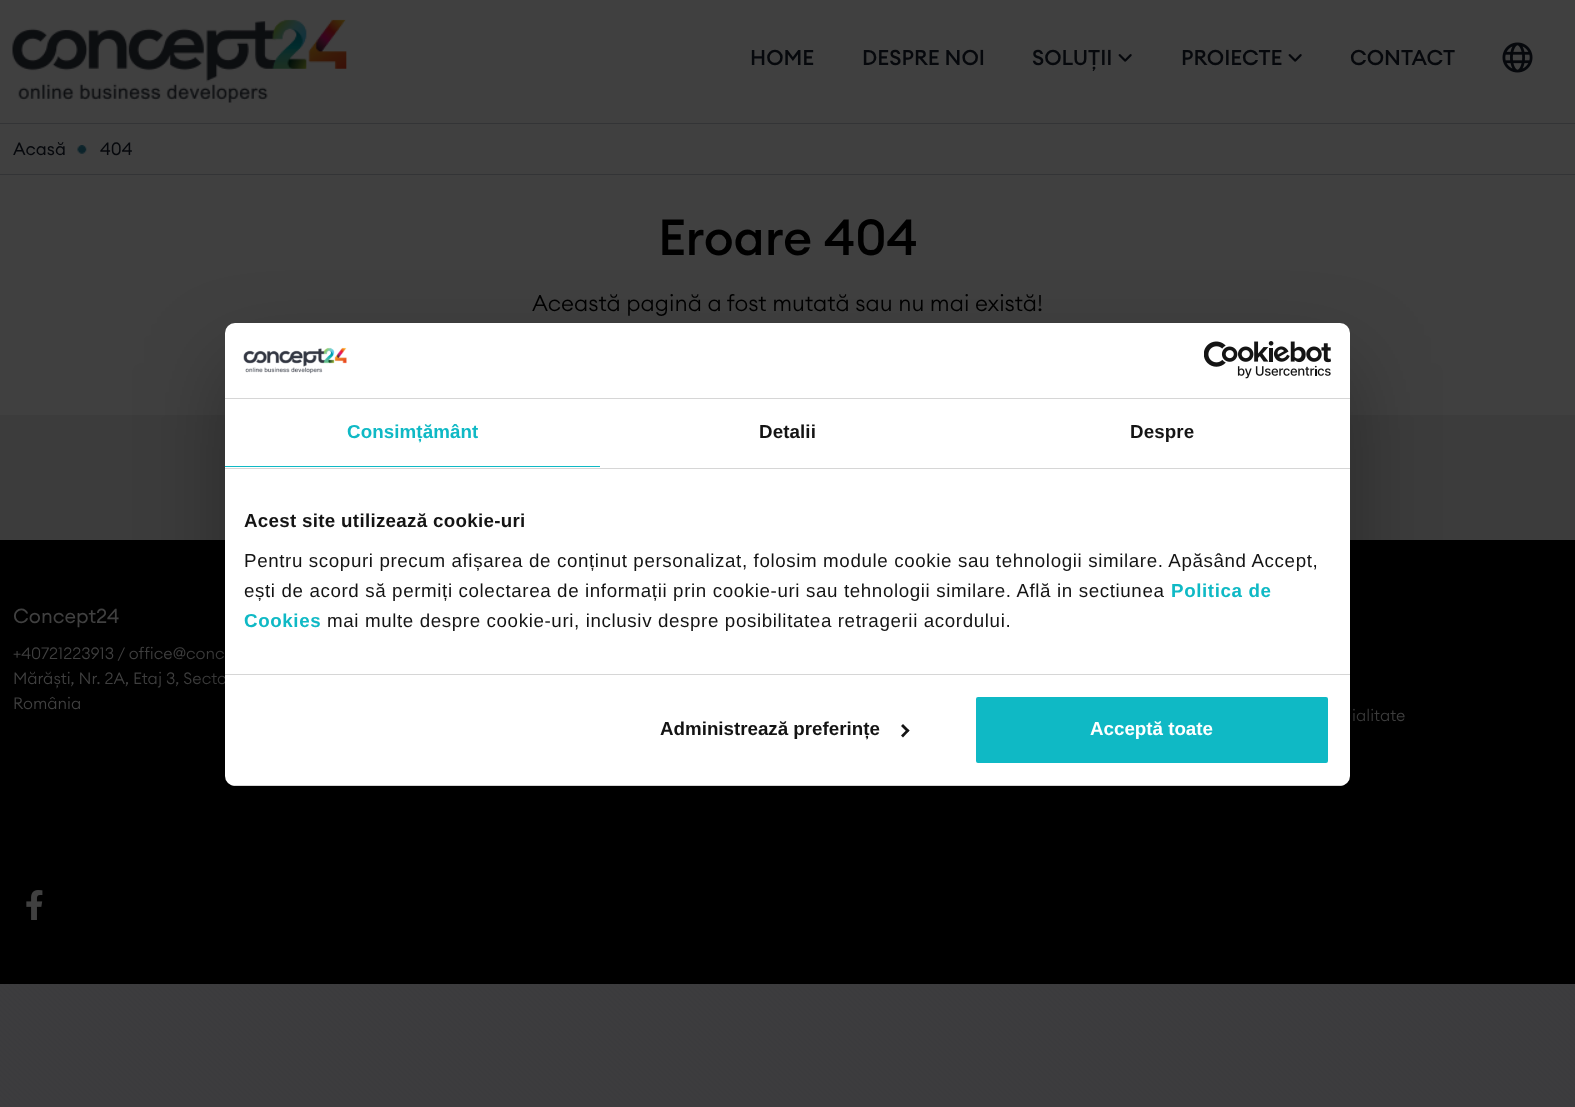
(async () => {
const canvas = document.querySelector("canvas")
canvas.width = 1575
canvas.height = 1107
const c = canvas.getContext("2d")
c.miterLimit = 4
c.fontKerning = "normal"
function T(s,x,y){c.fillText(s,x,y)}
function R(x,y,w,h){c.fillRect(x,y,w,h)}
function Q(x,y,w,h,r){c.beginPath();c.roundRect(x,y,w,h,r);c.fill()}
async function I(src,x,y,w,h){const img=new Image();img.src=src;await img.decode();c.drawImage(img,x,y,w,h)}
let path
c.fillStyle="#fff"
R(0,0,1575,1107)
await I("1.png",0,984,1575,123)
c.fillStyle="#404040"
R(0,0,1575,123)
c.fillStyle="#333436"
R(0,123,1575,1)
await I("2.png",12,19,335,84)
c.font="500 21.25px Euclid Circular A"
c.fillStyle="#06080c"
T("HOME",750,65)
T("DESPRE NOI",862,65)
T("SOLUȚII",1032,65)
await I("3.png",1118,54,14,8)
T("PROIECTE",1181,65)
await I("3.png",1288,54,14,8)
T("CONTACT",1350,65)
await I("4.png",1502,42,31,31)
c.fillStyle="#404040"
R(0,124,1575,50)
c.fillStyle="#333436"
R(0,174,1575,1)
c.font="17.5px Euclid Circular A"
c.fillStyle="#06080c"
T("Acasă",13,155)
await I("5.png",77,145,10,9)
T("404",100,155)
c.fillStyle="#404040"
R(0,175,1575,240)
c.font="500 50px Euclid Circular A"
c.fillStyle="#000"
T("Eroare 404",658,255)
c.font="300 22.5px Euclid Circular A"
T("Această pagină a fost mutată sau nu mai există!",532,311)
c.fillStyle="#3c3c3c"
R(0,415,1575,125)
c.fillStyle="#000"
R(0,540,1575,444)
c.font="20px Euclid Circular A"
c.fillStyle="#404040"
T("Concept24",13,623)
c.font="300 16.25px Euclid Circular A"
T("+40721223913 / office@conc",13,659)
T("Mărăști, Nr. 2A, Etaj 3, Secto",13,684)
T("România",13,709)
T("ialitate",1352,721)
await I("6.png",26,890,17,30)
c.fillStyle="#0000004d"
c.filter="blur(42.5px)"
c.beginPath()
c.roundRect(225,363,1125,463,10)
c.fill()
c.filter="none"
c.fillStyle="#fff"
Q(225,323,1125,463,10)
c.fillStyle="#d6d6d6"
R(225,398,1125,1)
await I("7.png",243,347,104,27)
await I("8.png",1204,341,127,38)
R(225,468,1125,1)
c.fillStyle="#0fb9c5"
R(225,466,375,1)
c.letterSpacing="0.1px"
c.font="bold 18.75px Liberation Sans"
T("Consimțământ",347,438)
c.fillStyle="#141414"
T("Detalii",759,438)
T("Despre",1130,438)
c.fillStyle="#d6d6d6"
R(225,674,1125,1)
c.letterSpacing="0.3px"
c.fillStyle="#141414"
T("Acest site utilizează cookie-uri",244,527)
c.letterSpacing="0.62px"
c.font="18.75px Liberation Sans"
T("Pentru scopuri precum afișarea de conținut personalizat, folosim module cookie sau tehnologii similare. Apăsând Accept,",244,567)
T("ești de acord să permiți colectarea de informații prin cookie-uri sau tehnologii similare. Află in sectiunea",244,597)
c.font="bold 18.75px Liberation Sans"
c.fillStyle="#0fb9c5"
T("Politica de",1171,597)
T("Cookies",244,627)
c.font="18.75px Liberation Sans"
c.fillStyle="#141414"
T("mai multe despre cookie-uri, inclusiv despre posibilitatea retragerii acordului.",327,627)
c.save()
c.beginPath()
c.roundRect(225,323,1125,463,10)
c.clip()
c.fillStyle="#d6d6d6"
R(225,785,1125,1)
c.restore()
c.letterSpacing="0px"
c.font="bold 18.75px Liberation Sans"
T("Administrează preferințe",660,735)
path = new Path2D("M903 724l6.5 6.5l-2 2l-6.5-6.5z")
c.fill(path)
path = new Path2D("M907.5 729l2 1.5l-6.5 7l-2-2z")
c.fill(path)
c.fillStyle="#0fb9c5"
c.beginPath()
c.roundRect(974.5,695.5,355,69,3.5)
c.fill()
c.strokeStyle="#fff"
c.lineWidth=3
c.stroke()
c.fillStyle="#fff"
T("Acceptă toate",1090,735)
})()
